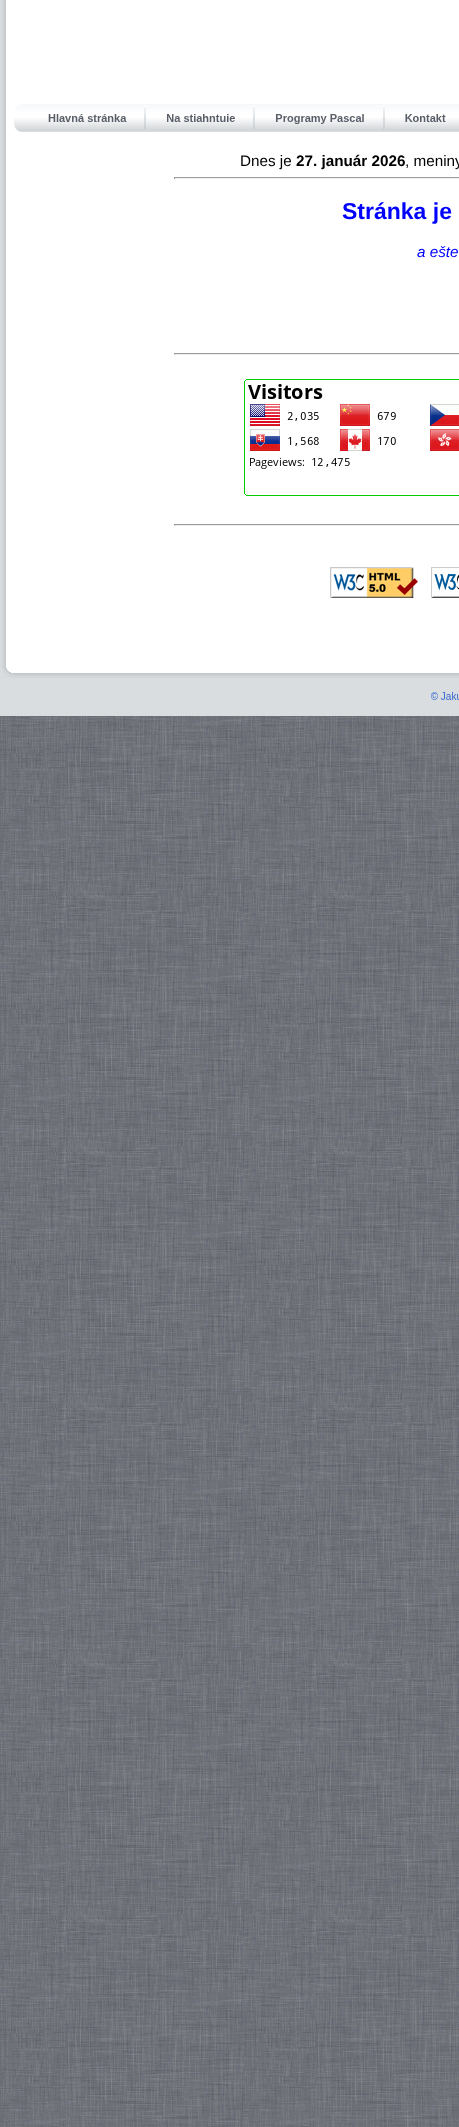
(async () => {
const canvas = document.querySelector("canvas")
canvas.width = 459
canvas.height = 2127
const c = canvas.getContext("2d")
c.miterLimit = 4
c.fontKerning = "normal"
function T(s,x,y){c.fillText(s,x,y)}
function R(x,y,w,h){c.fillRect(x,y,w,h)}
async function I(src,x,y,w,h){const img=new Image();img.src=src;await img.decode();c.drawImage(img,x,y,w,h)}
c.fillStyle="#fff"
R(0,0,459,2127)
await I("1.png",0,716,459,1411)
await I("2.png",0,0,459,668)
await I("3.png",14,104,445,28)
c.font="15.25px Liberation Sans"
c.fillStyle="#000"
T("Dnes je",240,166)
c.font="bold 15.25px Liberation Sans"
T("27. január 2026",296,166)
c.font="15.25px Liberation Sans"
T(", meniny",405,166)
c.fillStyle="#9f9f9f"
R(174,177,285,1)
c.fillStyle="#eee"
R(174,178,285,1)
c.fillStyle="#9f9f9f"
R(174,177,1,2)
c.font="bold 23px Liberation Sans"
c.fillStyle="#00f"
T("Stránka je",342,219)
c.font="italic 15.25px Liberation Sans"
T("a ešte",417,257)
await I("4.png",174,353,285,245)
c.fillStyle="#d9dde0"
R(0,668,459,48)
await I("5.png",2,668,457,10)
await I("6.png",430,692,29,8)
})()
